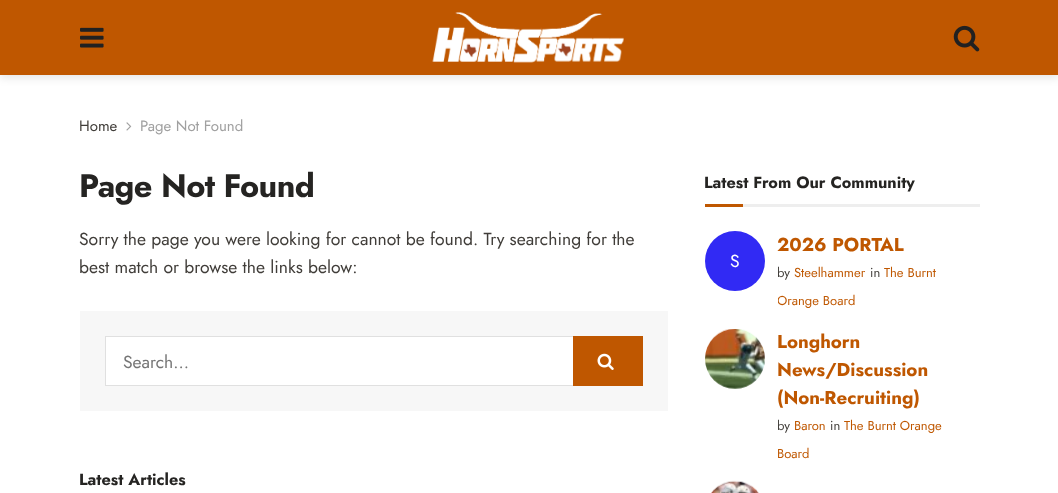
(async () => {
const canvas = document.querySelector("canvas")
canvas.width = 1058
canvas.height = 493
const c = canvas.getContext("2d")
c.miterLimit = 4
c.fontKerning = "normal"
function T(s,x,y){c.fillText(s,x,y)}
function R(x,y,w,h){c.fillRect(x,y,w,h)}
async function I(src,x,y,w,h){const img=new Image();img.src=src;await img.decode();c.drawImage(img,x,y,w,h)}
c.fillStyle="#fff"
R(0,0,1058,493)
c.fillStyle="#0000001a"
c.filter="blur(4px)"
c.beginPath()
c.rect(0,3,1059,75)
c.fill()
c.filter="none"
c.fillStyle="#bf5700"
R(0,0,1058,75)
await I("1.png",80,27,24,21)
await I("2.png",432,12,192,51)
await I("3.png",953,25,27,27)
c.font="15px Jost"
c.fillStyle="#403d39"
T("Home",79,131)
await I("4.png",126,122,6,9)
c.fillStyle="#a0a0a0"
T("Page Not Found",140,131)
c.letterSpacing="-0.6px"
c.font="bold 32.5px Jost"
c.fillStyle="#252422"
T("Page Not Found",79,197)
c.letterSpacing="0px"
c.font="17.5px Jost"
c.fillStyle="#403d39"
T("Sorry the page you were looking for cannot be found. Try searching for the",79,245)
T("best match or browse the links below:",79,273)
c.fillStyle="#f7f7f7"
R(80,311,588,100)
c.fillStyle="#fff"
R(106,337,467,48)
c.strokeStyle="#e0e0e0"
c.strokeRect(105.5,336.5,537,49)
c.fillStyle="#757575"
T("Search...",123,368)
c.fillStyle="#bf5700"
R(573,336,70,50)
await I("5.png",597,353,17,17)
c.font="bold 16.25px Jost"
c.fillStyle="#252422"
T("Latest Articles",79,485)
c.fillStyle="#eee"
R(743,204,237,3)
c.fillStyle="#252422"
T("Latest From Our Community",704,188)
c.fillStyle="#bf5700"
R(705,204,38,3)
c.fillStyle="#312af4"
c.beginPath()
c.arc(735,261,30,0,7)
c.fill()
c.font="17.5px Jost"
c.fillStyle="#fff"
T("S",730,267)
c.font="bold 18.75px Jost"
c.fillStyle="#bf5700"
T("2026 PORTAL",777,251)
c.save()
c.beginPath()
c.rect(778,231,202,84)
c.clip()
c.font="13px Jost"
c.fillStyle="#403d39"
T("by",777,277)
c.restore()
c.font="13px Jost"
T("Steelhammer",794,277)
c.fillStyle="#403d39"
T("in",870,277)
c.fillStyle="#bf5700"
T("The Burnt",884,277)
c.save()
c.beginPath()
c.rect(778,231,202,84)
c.clip()
T("Orange Board",777,305)
c.restore()
await I("6.png",705,329,60,60)
c.font="bold 18.75px Jost"
T("Longhorn",777,348)
T("News/Discussion",777,376)
T("(Non-Recruiting)",777,404)
c.save()
c.beginPath()
c.rect(778,329,202,140)
c.clip()
c.font="13px Jost"
c.fillStyle="#403d39"
T("by",777,430)
c.restore()
c.font="13px Jost"
T("Baron",794,430)
c.fillStyle="#403d39"
T("in",830,430)
c.fillStyle="#bf5700"
T("The Burnt Orange",844,430)
c.save()
c.beginPath()
c.rect(778,329,202,140)
c.clip()
T("Board",777,458)
c.restore()
await I("7.png",711,480,48,13)
})()
